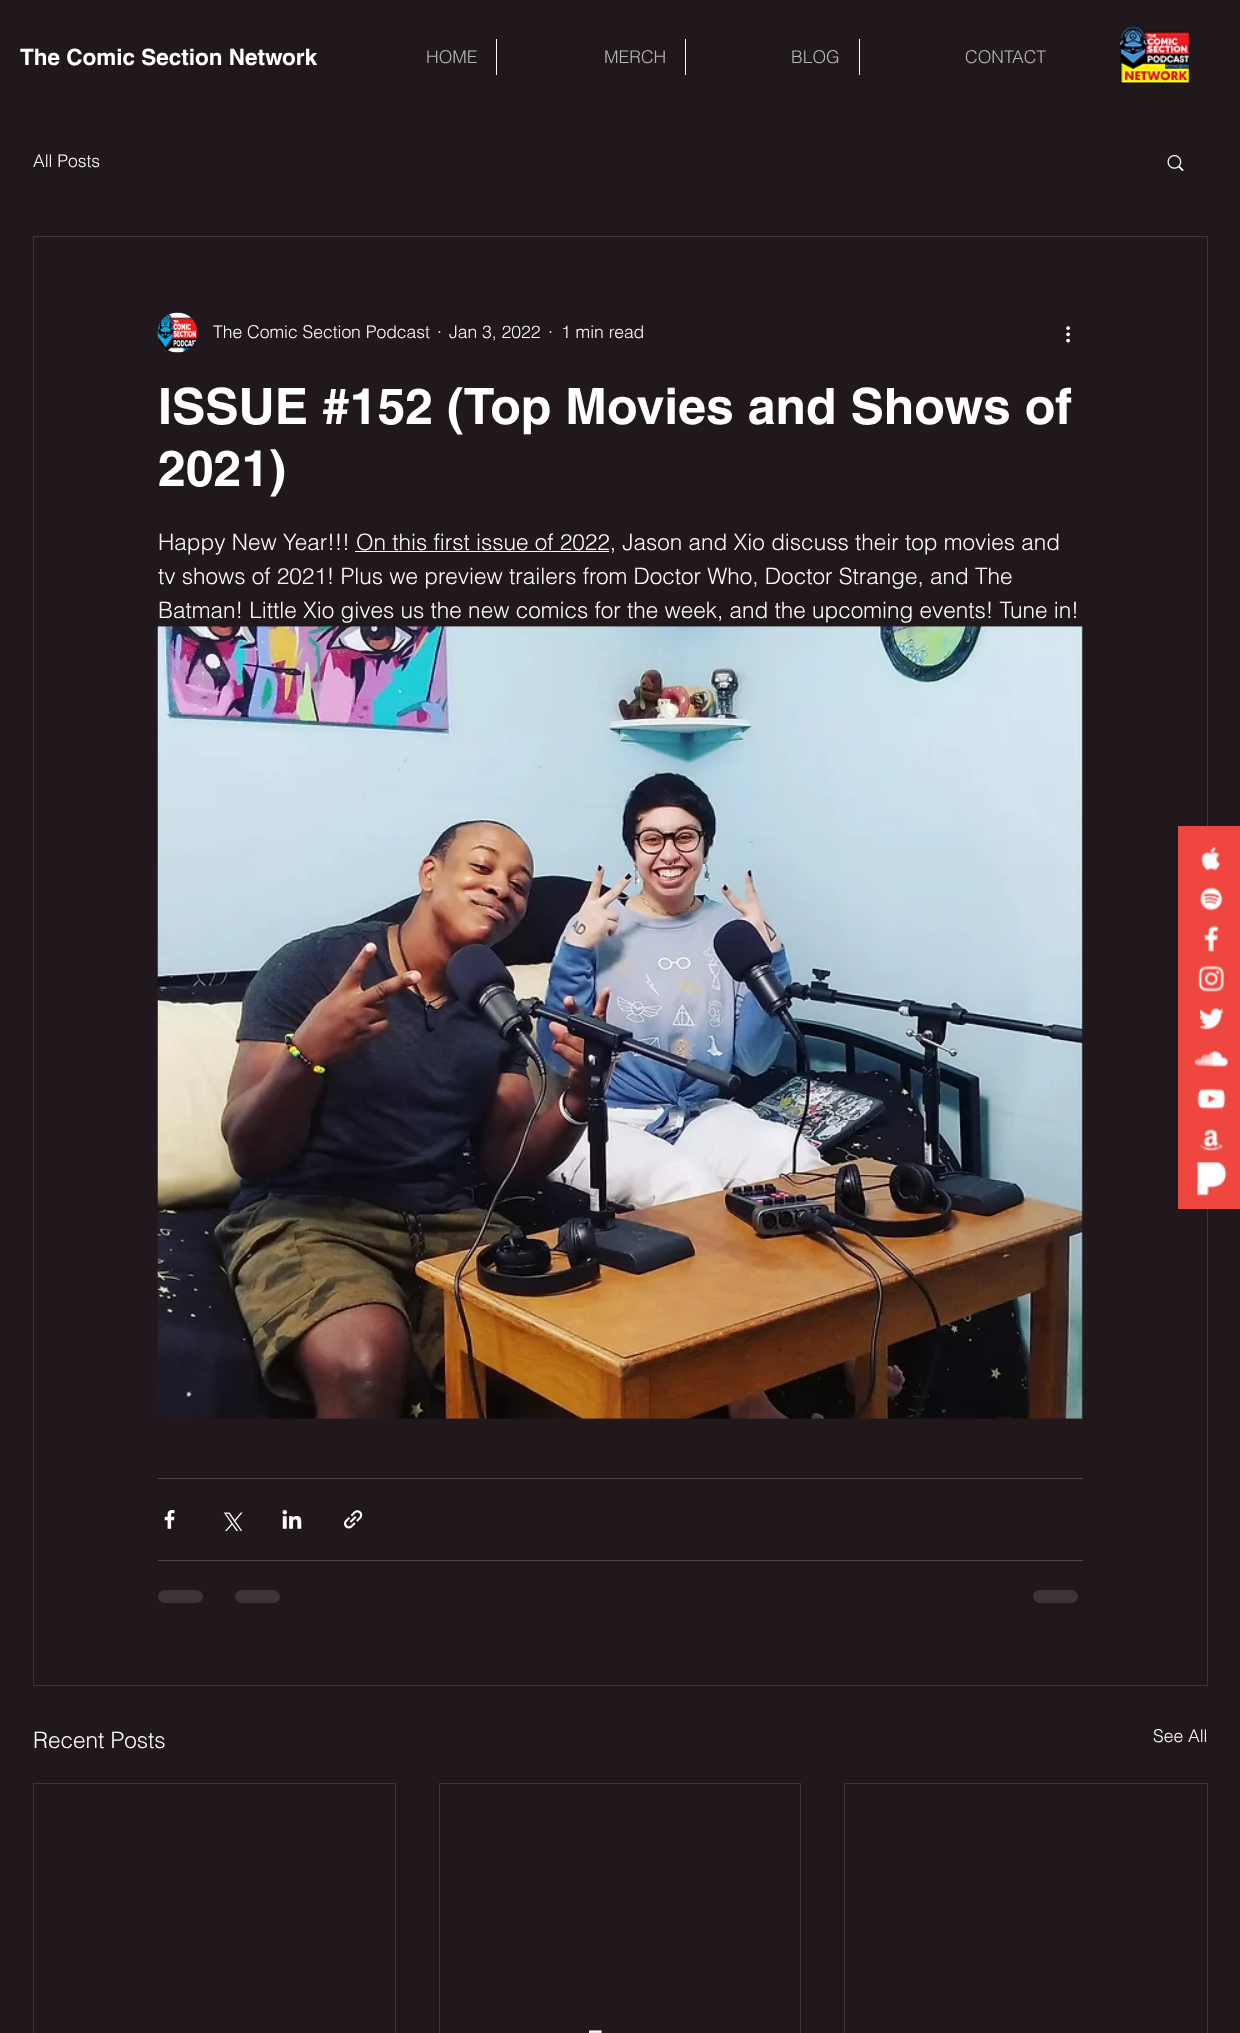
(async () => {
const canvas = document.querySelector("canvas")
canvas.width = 1240
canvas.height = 2033
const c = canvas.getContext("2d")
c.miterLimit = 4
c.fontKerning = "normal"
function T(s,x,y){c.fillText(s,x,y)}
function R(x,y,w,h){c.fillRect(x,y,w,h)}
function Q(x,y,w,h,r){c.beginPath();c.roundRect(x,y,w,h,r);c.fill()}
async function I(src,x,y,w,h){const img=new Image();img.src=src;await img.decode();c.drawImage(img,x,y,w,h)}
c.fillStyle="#21181d"
R(0,0,1240,2033)
c.font="bold 22.5px helvetica"
c.fillStyle="#fff"
T("The Comic Section Network",20,65)
c.font="300 17.5px helvetica"
c.fillStyle="#b5b5b5"
T("HOME",426,63)
c.fillStyle="#fff"
R(496,39,1,36)
c.fillStyle="#b5b5b5"
T("MERCH",604,63)
c.fillStyle="#fff"
R(685,39,1,36)
c.fillStyle="#b5b5b5"
T("BLOG",791,63)
c.fillStyle="#fff"
R(859,39,1,36)
c.fillStyle="#b5b5b5"
T("CONTACT",965,63)
await I("1.png",1120,26,69,58)
c.fillStyle="#fff"
T("All Posts",33,167)
await I("2.png",1167,155,17,17)
c.strokeStyle="#3e3637"
c.strokeRect(33.5,236.5,1174,1449)
await I("3.png",157,312,41,41)
T("The Comic Section Podcast",213,338)
T("·",437,338)
T("Jan 3, 2022",449,338)
T("·",548,338)
T("1 min read",561,338)
await I("4.png",1066,326,4,17)
c.font="bold 50px helvetica"
T("ISSUE #152 (Top Movies and Shows of",158,424)
T("2021)",158,486)
c.font="300 22.5px helvetica"
T("Happy New Year!!! On this first issue of 2022, Jason and Xio discuss their top movies and",158,550)
R(355,551,254,1)
T("tv shows of 2021! Plus we preview trailers from Doctor Who, Doctor Strange, and The",158,584)
T("Batman! Little Xio gives us the new comics for the week, and the upcoming events! Tune in!",158,618)
await I("5.png",157,626,926,793)
c.fillStyle="#4d464a"
R(158,1478,925,1)
await I("6.png",164,1510,11,19)
await I("7.png",223,1512,20,19)
await I("8.png",282,1510,20,19)
await I("9.png",344,1510,19,19)
R(158,1560,925,1)
c.fillStyle="#3c3438"
Q(158,1590,45,13,6.5)
Q(235,1590,45,13,6.5)
Q(1033,1590,45,13,6.5)
c.fillStyle="#fff"
T("Recent Posts",33,1748)
c.font="300 17.5px helvetica"
T("See All",1153,1742)
c.strokeRect(33.5,1783.5,362,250)
c.strokeRect(439.5,1783.5,361,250)
c.font="bold 22.5px helvetica"
T("–",589,2038)
c.strokeRect(844.5,1783.5,363,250)
c.fillStyle="#ef463f"
R(1178,826,62,383)
await I("10.png",1201,847,20,24)
await I("11.png",1200,887,23,24)
await I("12.png",1203,925,16,28)
await I("13.png",1198,965,26,28)
await I("14.png",1198,1008,26,22)
await I("15.png",1195,1050,33,17)
await I("16.png",1197,1088,29,22)
await I("17.png",1200,1129,23,22)
await I("18.png",1197,1162,30,34)
})()
